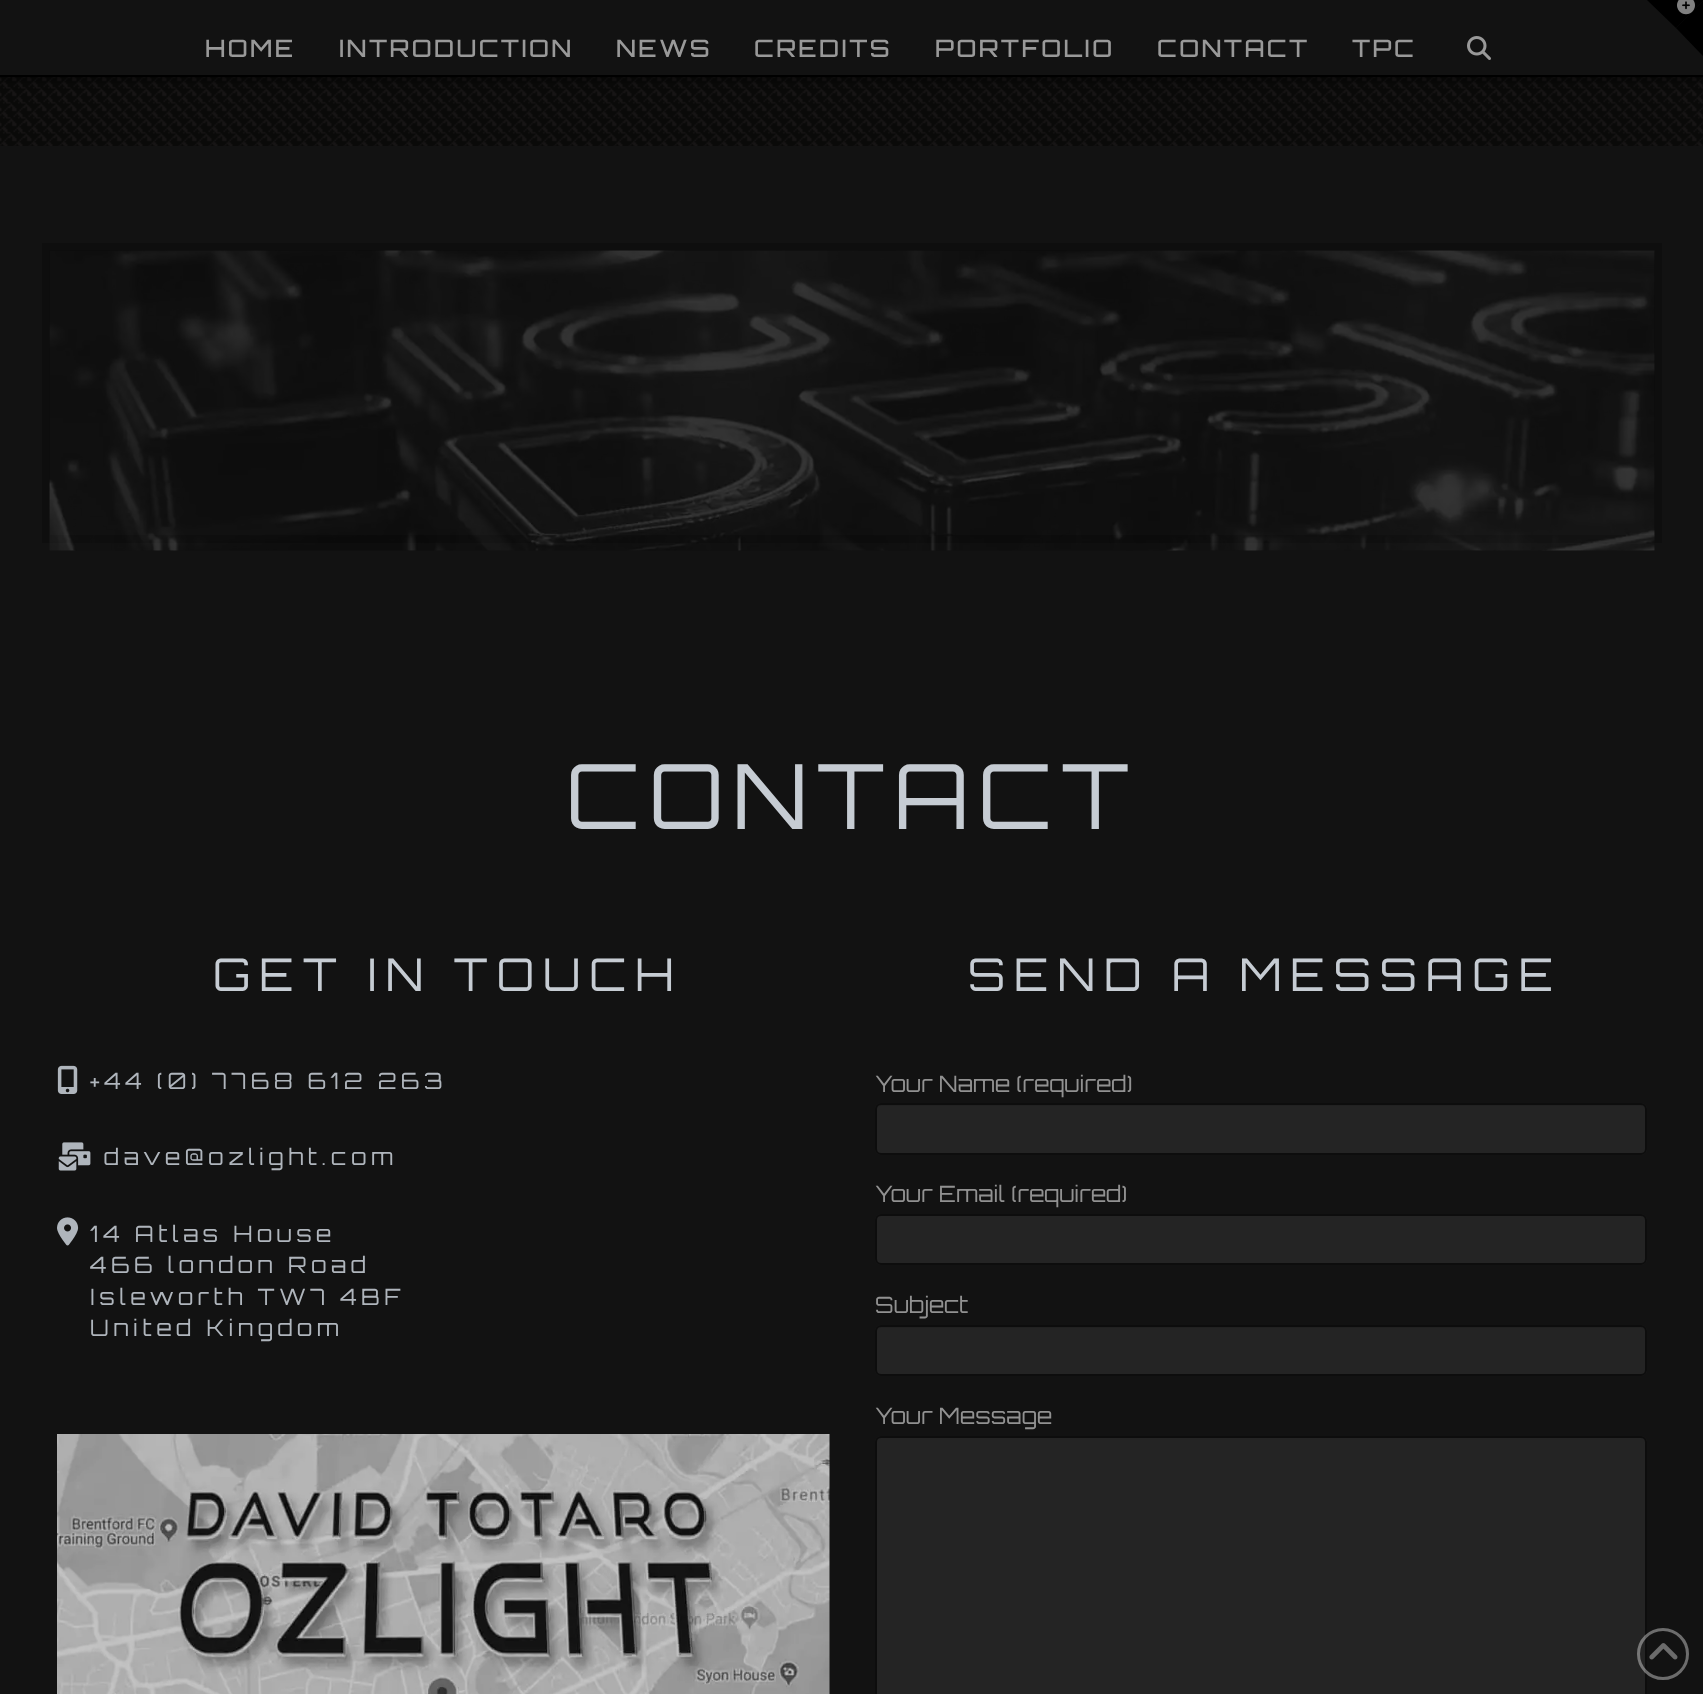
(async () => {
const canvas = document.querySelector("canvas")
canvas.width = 1703
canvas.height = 1694
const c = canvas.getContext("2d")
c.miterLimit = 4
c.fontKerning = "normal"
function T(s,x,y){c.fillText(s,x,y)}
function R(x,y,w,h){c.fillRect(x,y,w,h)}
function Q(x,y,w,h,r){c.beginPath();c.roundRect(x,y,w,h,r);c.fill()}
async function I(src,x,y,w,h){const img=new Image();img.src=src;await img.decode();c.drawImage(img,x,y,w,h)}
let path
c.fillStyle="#fff"
R(0,0,1703,1694)
await I("1.png",0,77,1703,69)
c.fillStyle="#00000078"
c.filter="blur(4px)"
c.beginPath()
c.rect(0,3,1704,77)
c.fill()
c.filter="none"
c.fillStyle="#121212"
R(0,0,1703,75)
c.fillStyle="#000"
path = new Path2D("M1647 0h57l-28 28z")
c.fill(path)
path = new Path2D("M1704 0v57l-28-29z")
c.fill(path)
await I("2.png",1677,0,18,15)
R(0,75,1703,2)
c.letterSpacing="2.4px"
c.font="500 24px Orbitron"
c.fillStyle="#999"
T("HOME",205,57)
T("INTRODUCTION",339,57)
T("NEWS",616,57)
T("CREDITS",754,57)
T("PORTFOLIO",935,57)
T("CONTACT",1157,57)
T("TPC",1352,57)
await I("3.png",1467,36,24,24)
c.fillStyle="#121212"
R(0,146,1703,1548)
c.strokeStyle="#0e0e0e"
c.lineWidth=8
c.strokeRect(46,247,1612,292)
await I("4.png",49,250,1606,301)
c.letterSpacing="9px"
c.font="90px Orbitron"
c.fillStyle="#c6ccd3"
T("CONTACT",566,829)
c.font="45px Orbitron"
T("GET IN TOUCH",213,991)
await I("5.png",57,1065,21,29)
c.letterSpacing="4.5px"
c.font="22.5px Orbitron"
c.fillStyle="#afb5bc"
T("+44 (0) 7768 612 263",90,1089)
await I("6.png",58,1142,33,29)
T("dave@ozlight.com",104,1165)
await I("7.png",57,1217,22,29)
T("14 Atlas House",90,1242)
T("466 london Road",90,1273)
T("Isleworth TW7 4BF",90,1305)
T("United Kingdom",90,1336)
await I("8.png",57,1434,773,260)
c.letterSpacing="9px"
c.font="45px Orbitron"
c.fillStyle="#c6ccd3"
T("SEND A MESSAGE",968,991)
c.letterSpacing="0px"
c.font="22.5px Orbitron"
c.fillStyle="#919191"
T("Your Name (required)",875,1092)
c.fillStyle="#242424"
Q(875,1103,772,52,6)
c.fillStyle="#212121"
path = new Path2D("M880 1106h761c2 0 5 2 5 4c0-3-2-6-5-6h-760c-2 0-4 1-5 3v3c0-2 2-4 4-4z")
c.fill(path)
c.beginPath()
c.roundRect(876,1104,770,50,5)
c.strokeStyle="#0d0d0d"
c.lineWidth=2
c.stroke()
c.fillStyle="#919191"
T("Your Email (required)",875,1202)
c.fillStyle="#242424"
Q(875,1214,772,51,6)
c.fillStyle="#212121"
path = new Path2D("M880 1216h761c2 0 5 3 5 5c0-3-2-6-5-6h-760c-2 0-4 1-5 3v3c0-2 2-5 4-5z")
c.fill(path)
c.beginPath()
c.roundRect(876,1215,770,49,5)
c.stroke()
c.fillStyle="#919191"
T("Subject",875,1313)
c.fillStyle="#242424"
Q(875,1325,772,51,6)
c.fillStyle="#212121"
path = new Path2D("M880 1328h761c2 0 5 2 5 4c0-3-2-6-5-6h-760c-2 0-4 1-5 3v3c0-2 2-4 4-4z")
c.fill(path)
c.beginPath()
c.roundRect(876,1326,770,49,5)
c.stroke()
c.fillStyle="#919191"
T("Your Message",875,1424)
c.fillStyle="#242424"
Q(875,1436,772,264,6)
c.fillStyle="#212121"
path = new Path2D("M880 1438h761c2 0 5 3 5 5c0-3-2-6-5-6h-760c-2 0-4 1-5 3v3c0-2 2-5 4-5z")
c.fill(path)
c.beginPath()
c.roundRect(876,1437,770,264,5)
c.stroke()
c.beginPath()
c.arc(1663,1654,24.5,0,7)
c.strokeStyle="#ffffff61"
c.lineWidth=3
c.stroke()
await I("9.png",1649,1643,29,17)
})()
